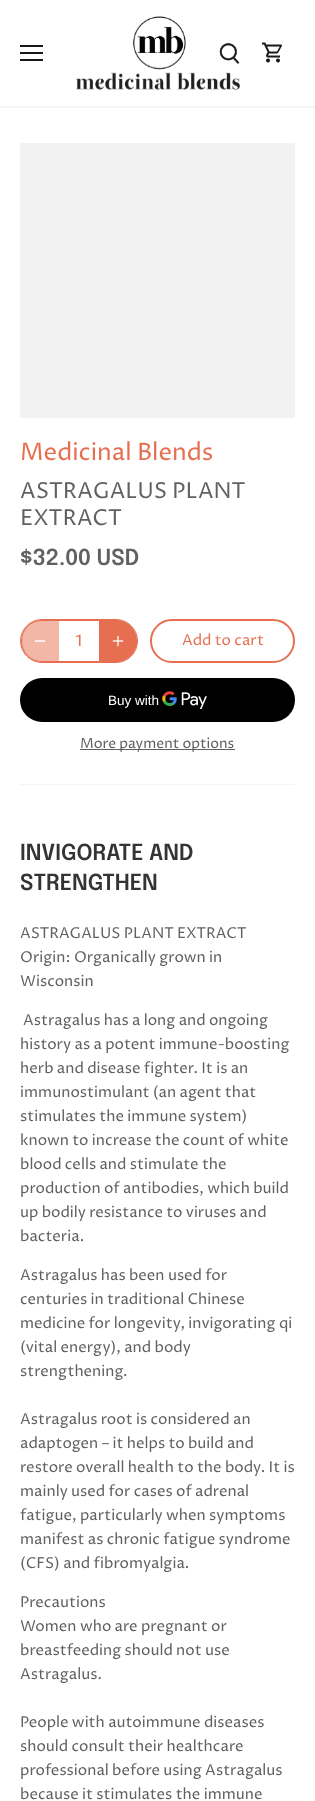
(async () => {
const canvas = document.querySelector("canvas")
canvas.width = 315
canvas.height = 1801
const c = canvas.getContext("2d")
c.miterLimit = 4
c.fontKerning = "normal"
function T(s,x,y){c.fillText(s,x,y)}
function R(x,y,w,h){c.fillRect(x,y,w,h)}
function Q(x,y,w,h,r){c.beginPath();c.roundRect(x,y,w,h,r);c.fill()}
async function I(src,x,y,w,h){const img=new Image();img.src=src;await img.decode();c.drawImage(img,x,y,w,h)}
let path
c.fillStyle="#fff"
R(0,0,315,1801)
c.save()
c.beginPath()
c.rect(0,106,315,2)
c.clip()
c.fillStyle="#00000014"
c.filter="blur(1.5px)"
c.beginPath()
c.rect(-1,-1,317,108)
c.fill()
c.filter="none"
c.restore()
c.fillStyle="#191817"
R(20,45,23,2)
R(20,52,23,2)
R(20,59,23,2)
await I("1.png",75,16,165,74)
await I("2.png",219,43,21,21)
await I("3.png",262,42,20,21)
c.fillStyle="#f2f2f2"
R(20,143,275,275)
c.font="24px Proza Libre"
c.fillStyle="#e76f51"
T("Medicinal Blends",20,460)
c.font="22px Proza Libre"
c.fillStyle="#616161"
T("ASTRAGALUS PLANT",20,498)
T("EXTRACT",20,525)
c.font="600 22px Epilogue"
T("$32.00 USD",20,565)
c.beginPath()
c.roundRect(21.5,620.5,115,41,20.5)
c.strokeStyle="#e76f51"
c.stroke()
c.beginPath()
c.roundRect(20.5,619.5,117,43,21.5)
c.stroke()
c.fillStyle="#e76f5180"
c.beginPath()
c.roundRect(21,620,38,42,[21,0,0,21])
c.fill()
path = new Path2D("M35.5 641h9")
c.strokeStyle="#fff"
c.lineWidth=1.3
c.lineCap="round"
c.lineJoin="round"
c.stroke(path)
c.font="16px Proza Libre"
c.fillStyle="#e76f51"
T("1",75,646)
c.beginPath()
c.roundRect(99,620,38,42,[0,21,21,0])
c.fill()
await I("4.png",112,635,12,12)
c.beginPath()
c.roundRect(151,620,143,42,21)
c.strokeStyle="#e76f51"
c.lineWidth=2
c.lineJoin="miter"
c.stroke()
c.font="15px Proza Libre"
T("Add to cart",182,645)
path = new Path2D("M218 637c2.5-2.5 6.5-2.5 9 0m0 9c-2.5 2.5-6.5 2.5-9 0")
c.strokeStyle="#fff"
c.lineCap="butt"
c.stroke(path)
c.fillStyle="#000"
Q(20,678,275,44,22)
c.font="13.5px Liberation Sans"
c.fillStyle="#fff"
T("Buy with",108,705)
await I("5.png",162,691,45,18)
c.fillStyle="#616161"
R(80,749,155,1)
c.font="14px Proza Libre"
T("More payment options",80,748)
c.fillStyle="#f5f5f5"
R(20,784,275,1)
c.font="600 22px Epilogue"
c.fillStyle="#343434"
T("INVIGORATE AND",20,860)
T("STRENGTHEN",20,890)
c.font="15px Proza Libre"
c.fillStyle="#616161"
T("ASTRAGALUS PLANT EXTRACT",20,938)
T("Origin: Organically grown in",20,962)
T("Wisconsin",20,986)
T("Astragalus has a long and ongoing",23,1025)
T("history as a potent immune-boosting",20,1049)
T("herb and disease fighter. It is an",20,1073)
T("immunostimulant (an agent that",20,1097)
T("stimulates the immune system)",20,1121)
T("known to increase the count of white",20,1145)
T("blood cells and stimulate the",20,1169)
T("production of antibodies, which build",20,1193)
T("up bodily resistance to viruses and",20,1217)
T("bacteria.",20,1241)
T("Astragalus has been used for",20,1280)
T("centuries in traditional Chinese",20,1304)
T("medicine for longevity, invigorating qi",20,1328)
T("(vital energy), and body",20,1352)
T("strengthening.",20,1376)
T("Astragalus root is considered an",20,1424)
T("adaptogen – it helps to build and",20,1448)
T("restore overall health to the body. It is",20,1472)
T("mainly used for cases of adrenal",20,1496)
T("fatigue, particularly when symptoms",20,1520)
T("manifest as chronic fatigue syndrome",20,1544)
T("(CFS) and fibromyalgia.",20,1568)
T("Precautions",20,1607)
T("Women who are pregnant or",20,1631)
T("breastfeeding should not use",20,1655)
T("Astragalus.",20,1679)
T("People with autoimmune diseases",20,1727)
T("should consult their healthcare",20,1751)
T("professional before using Astragalus",20,1775)
T("because it stimulates the immune",20,1799)
})()
